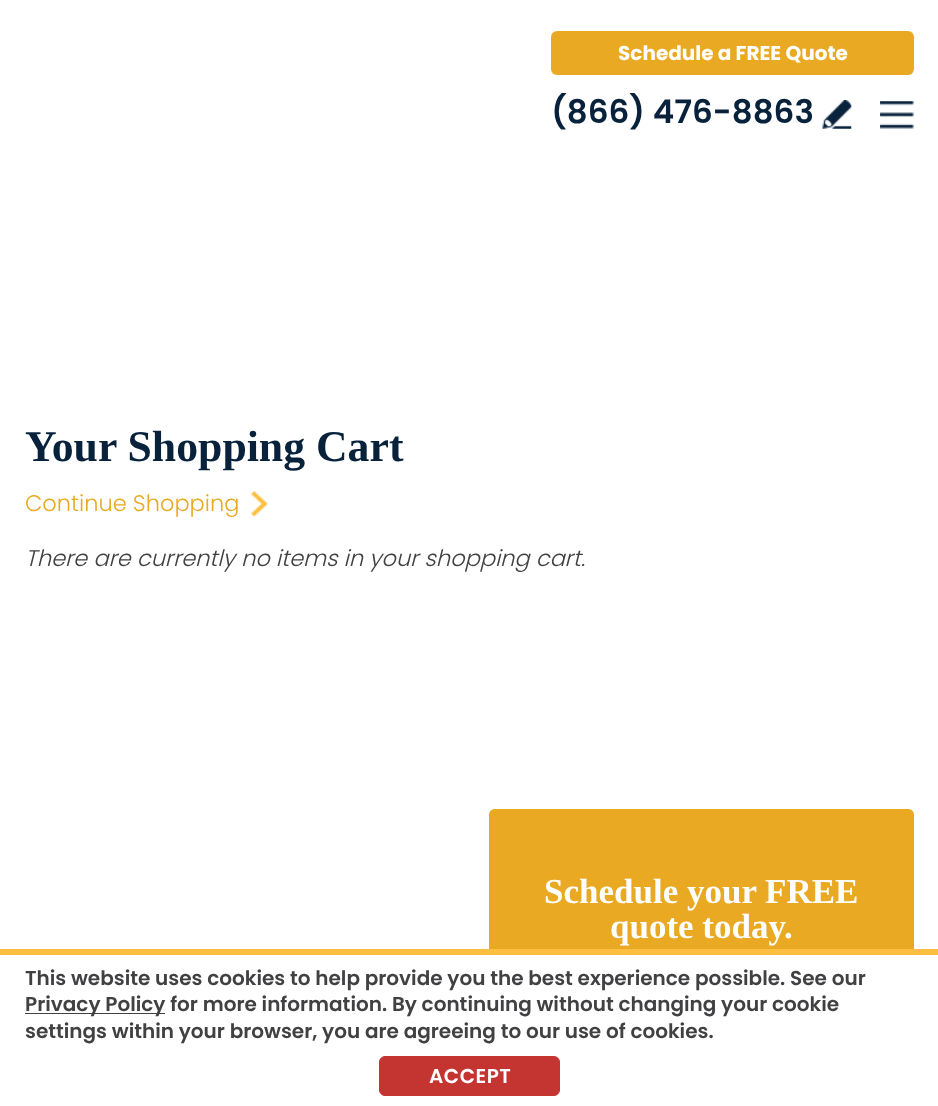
(async () => {
const canvas = document.querySelector("canvas")
canvas.width = 938
canvas.height = 1106
const c = canvas.getContext("2d")
c.miterLimit = 4
c.fontKerning = "normal"
function T(s,x,y){c.fillText(s,x,y)}
function R(x,y,w,h){c.fillRect(x,y,w,h)}
function Q(x,y,w,h,r){c.beginPath();c.roundRect(x,y,w,h,r);c.fill()}
async function I(src,x,y,w,h){const img=new Image();img.src=src;await img.decode();c.drawImage(img,x,y,w,h)}
let path
c.fillStyle="#fff"
R(0,0,938,1106)
c.fillStyle="#e9a922"
Q(551,31,363,44,6)
c.font="bold 20px Poppins"
c.fillStyle="#fff"
T("Schedule a FREE Quote",618,60)
c.font="600 32.5px Poppins"
c.fillStyle="#08223c"
T("(866) 476-8863",551,123)
await I("1.png",822,100,30,29)
await I("2.png",880,101,34,28)
c.font="bold 43.75px Liberation Serif"
T("Your Shopping Cart",25,461)
c.font="300 22.5px Poppins"
c.fillStyle="#e9a922"
T("Continue Shopping",25,511)
await I("3.png",251,491,17,26)
c.font="italic 300 22.5px Poppins"
c.fillStyle="#414042"
T("There are currently no items in your shopping cart.",25,566)
c.fillStyle="#e9a922"
path = new Path2D("M495 809h413c3.5 0 6 2.5 6 6v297h-425v-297c0-3.5 2.5-6 6-6z")
c.fill(path)
c.font="bold 35px Liberation Serif"
c.fillStyle="#fff"
T("Schedule your FREE",544,903)
T("quote today.",610,938)
R(489,955,425,151)
c.fillStyle="#febf40"
R(0,949,938,6)
c.font="600 20px Poppins"
c.fillStyle="#414042"
T("This website uses cookies to help provide you the best experience possible. See our",25,985)
R(25,1013,140,1)
T("Privacy Policy for more information. By continuing without changing your cookie",25,1011)
T("settings within your browser, you are agreeing to our use of cookies.",25,1038)
c.fillStyle="#c43430"
c.beginPath()
c.roundRect(379.5,1056.5,180,39,5.5)
c.fill()
c.strokeStyle="#c43430"
c.stroke()
c.letterSpacing="0.5px"
c.fillStyle="#fff"
T("ACCEPT",429,1083)
})()
